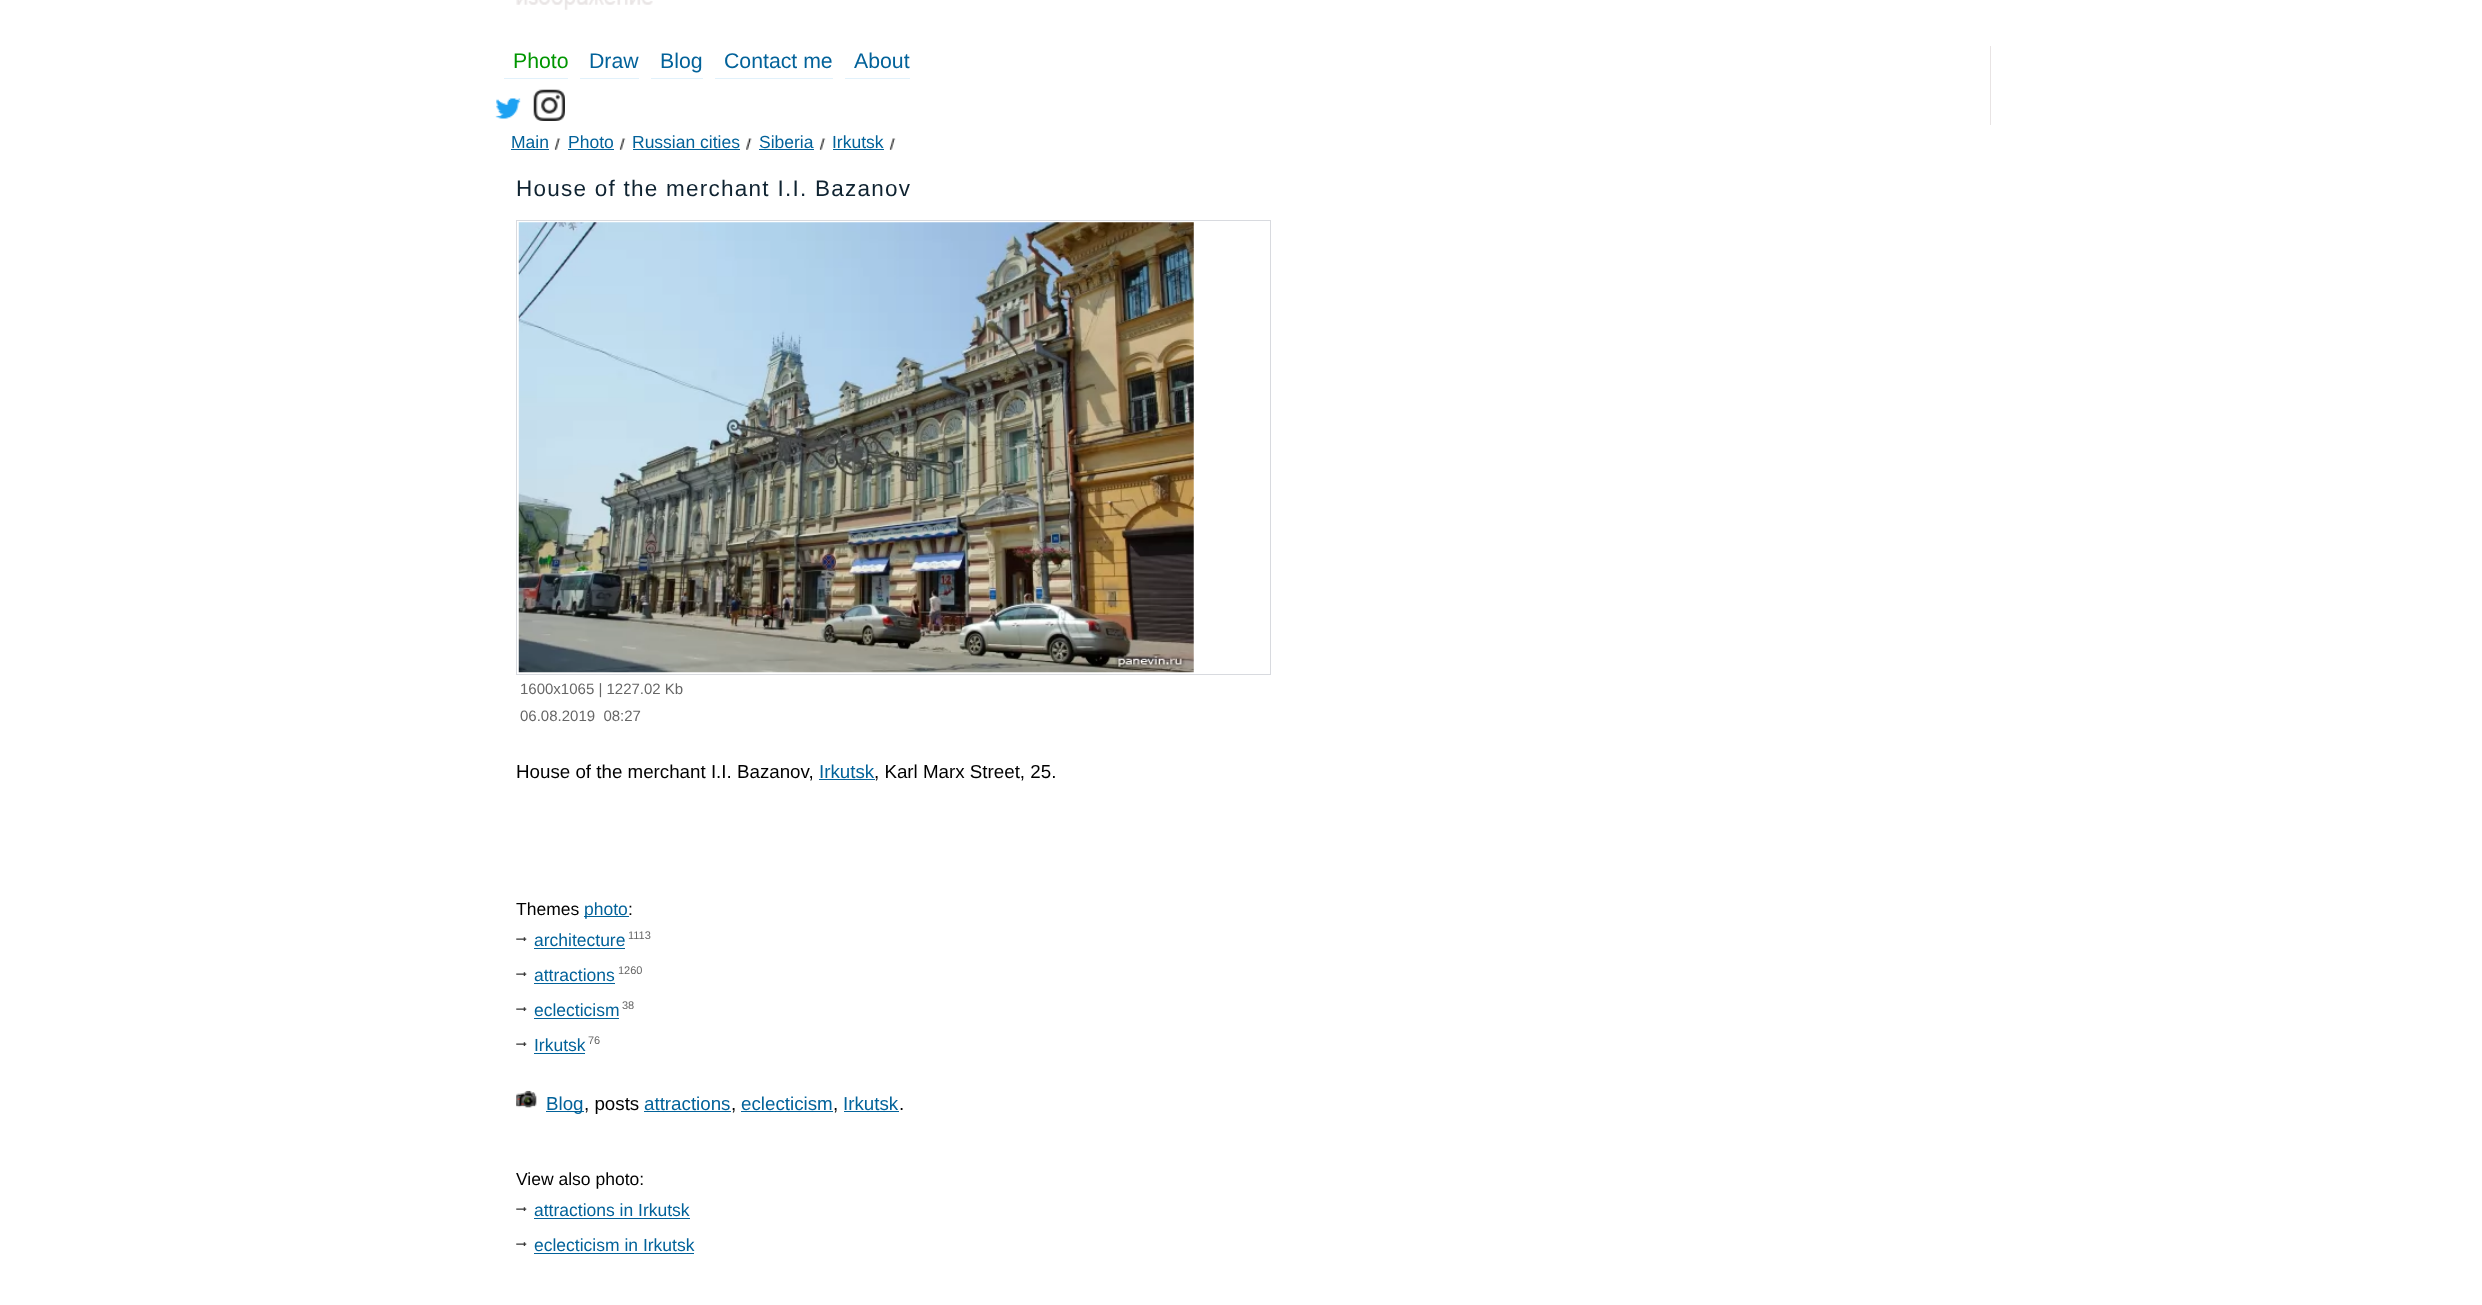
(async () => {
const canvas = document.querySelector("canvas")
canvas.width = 2482
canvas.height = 1305
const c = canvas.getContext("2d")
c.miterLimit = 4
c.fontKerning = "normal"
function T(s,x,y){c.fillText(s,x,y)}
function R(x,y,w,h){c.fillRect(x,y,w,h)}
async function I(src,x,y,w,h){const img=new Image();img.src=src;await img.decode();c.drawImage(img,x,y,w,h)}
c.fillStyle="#fff"
R(0,0,2482,1305)
await I("1.png",516,0,137,10)
c.fillStyle="#e8e4e4"
R(1990,46,1,79)
c.fillStyle="#e1f1fb"
R(504,78,64,1)
c.font="21.25px Liberation Sans"
c.fillStyle="#009600"
T("Photo",513,68)
c.fillStyle="#e1f1fb"
R(580,78,59,1)
c.fillStyle="#02629a"
T("Draw",589,68)
c.fillStyle="#e1f1fb"
R(651,78,52,1)
c.fillStyle="#02629a"
T("Blog",660,68)
c.fillStyle="#e1f1fb"
R(715,78,118,1)
c.fillStyle="#02629a"
T("Contact me",724,68)
c.fillStyle="#e1f1fb"
R(845,78,65,1)
c.fillStyle="#02629a"
T("About",854,68)
await I("2.png",495,98,26,21)
await I("3.png",533,89,32,32)
c.font="17.5px Liberation Sans"
T("Main",511,148)
R(511,149,38,1)
await I("4.png",554,138,7,12)
T("Photo",568,148)
R(568,149,46,1)
await I("4.png",619,138,7,12)
T("Russian cities",632,148)
R(633,149,107,1)
await I("5.png",746,138,6,12)
T("Siberia",759,148)
R(759,149,55,1)
await I("4.png",819,138,7,12)
T("Irkutsk",832,148)
R(833,149,51,1)
await I("4.png",889,138,7,12)
c.letterSpacing="1.25px"
c.font="22.5px Liberation Sans"
c.fillStyle="#0f2331"
T("House of the merchant I.I. Bazanov",516,196)
c.strokeStyle="#d8dadf"
c.strokeRect(516.5,220.5,754,454)
await I("6.png",518,222,676,451)
c.letterSpacing="0px"
c.font="15px Liberation Sans"
c.fillStyle="#666"
T("1600x1065 | 1227.02 Kb",520,694)
T("06.08.2019  08:27",520,721)
c.font="18.75px Liberation Sans"
c.fillStyle="#000"
T("House of the merchant I.I. Bazanov,",516,778)
c.fillStyle="#02629a"
T("Irkutsk",819,778)
c.fillStyle="#000"
T(", Karl Marx Street, 25.",874,778)
c.fillStyle="#02629a"
R(819,779,56,1)
c.font="17.5px Liberation Sans"
c.fillStyle="#000"
T("Themes",516,915)
c.fillStyle="#02629a"
R(584,916,45,1)
T("photo",584,915)
c.fillStyle="#000"
T(":",628,915)
await I("7.png",516,937,11,4)
c.fillStyle="#02629a"
T("architecture",534,946)
R(534,948,91,1)
c.font="11px Liberation Sans"
c.fillStyle="#666"
T("1113",628,939)
await I("7.png",516,972,11,4)
c.font="17.5px Liberation Sans"
c.fillStyle="#02629a"
T("attractions",534,981)
R(534,983,81,1)
c.font="11px Liberation Sans"
c.fillStyle="#666"
T("1260",618,974)
await I("7.png",516,1007,11,4)
c.font="17.5px Liberation Sans"
c.fillStyle="#02629a"
T("eclecticism",534,1016)
R(534,1018,85,1)
c.font="11px Liberation Sans"
c.fillStyle="#666"
T("38",622,1009)
await I("7.png",516,1042,11,4)
c.font="17.5px Liberation Sans"
c.fillStyle="#02629a"
T("Irkutsk",534,1051)
R(534,1053,51,1)
c.font="11px Liberation Sans"
c.fillStyle="#666"
T("76",588,1044)
await I("8.png",516,1090,21,18)
c.fillStyle="#02629a"
R(546,1111,38,1)
c.font="18.75px Liberation Sans"
T("Blog",546,1110)
c.fillStyle="#000"
T(", posts",584,1110)
c.fillStyle="#02629a"
T("attractions",644,1110)
R(644,1111,87,1)
c.fillStyle="#000"
T(",",731,1110)
c.fillStyle="#02629a"
T("eclecticism",741,1110)
R(741,1111,92,1)
c.fillStyle="#000"
T(",",833,1110)
c.fillStyle="#02629a"
T("Irkutsk",843,1110)
R(844,1111,55,1)
c.fillStyle="#000"
T(".",899,1110)
c.font="17.5px Liberation Sans"
T("View also photo:",516,1185)
await I("7.png",516,1207,11,4)
c.fillStyle="#02629a"
T("attractions in Irkutsk",534,1216)
R(534,1218,156,1)
await I("7.png",516,1242,11,4)
T("eclecticism in Irkutsk",534,1251)
R(534,1253,160,1)
})()
